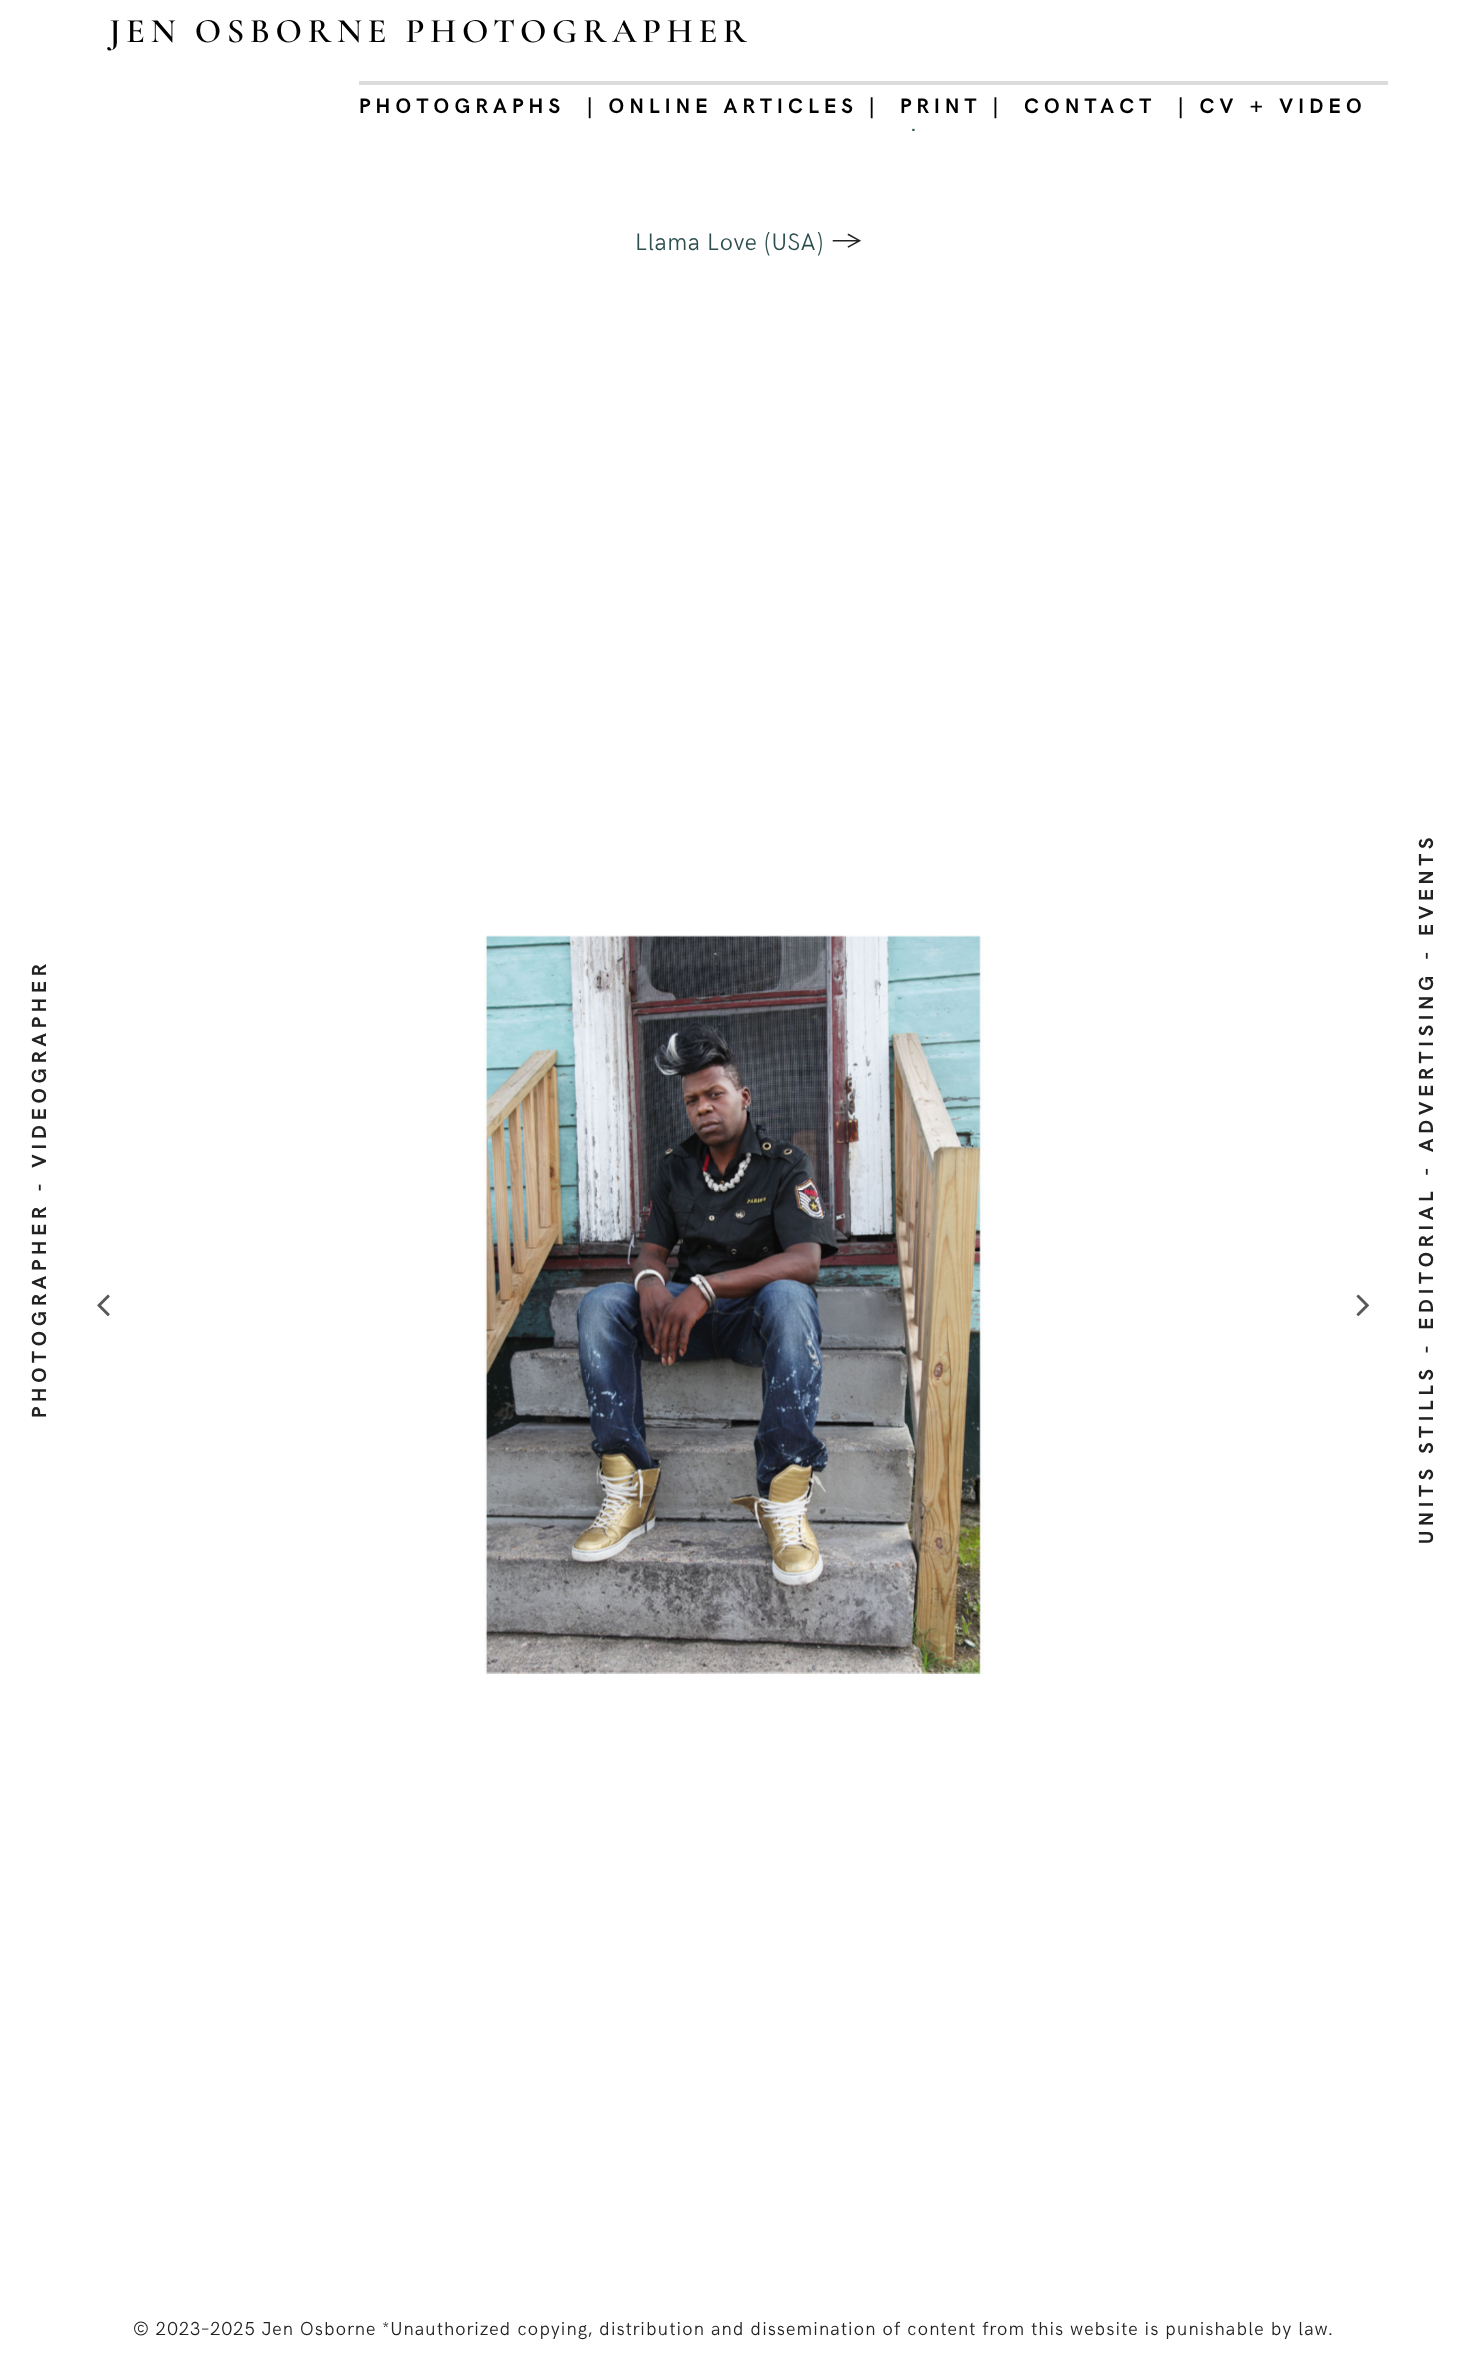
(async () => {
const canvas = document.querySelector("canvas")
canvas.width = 1465
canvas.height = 2375
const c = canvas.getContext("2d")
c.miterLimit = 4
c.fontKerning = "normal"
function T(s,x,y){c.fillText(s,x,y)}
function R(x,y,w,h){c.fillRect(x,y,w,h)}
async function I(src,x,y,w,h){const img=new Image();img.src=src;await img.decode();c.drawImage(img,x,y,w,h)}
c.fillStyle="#fff"
R(0,0,1465,2375)
c.letterSpacing="5.5px"
c.font="600 34.6px Cormorant Garamond"
c.fillStyle="#000"
T("JEN OSBORNE PHOTOGRAPHER",109,42)
c.fillStyle="#dcdcdc"
R(359,81,1029,4)
c.letterSpacing="5.25px"
c.font="bold 21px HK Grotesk"
c.fillStyle="#000"
T("PHOTOGRAPHS",359,113)
T("| ONLINE ARTICLES |",587,113)
T("PRINT |",900,113)
T("CONTACT",1024,113)
T("| CV + VIDEO",1178,113)
c.letterSpacing="0.2px"
c.font="300 24px HK Grotesk"
c.fillStyle="#2f4f4f"
T(".",911,131)
T("Llama Love (USA)",635,250)
c.font="300 30px HK Grotesk"
c.fillStyle="#222"
T("→",831,250)
await I("1.png",97,1294,13,22)
await I("2.png",483,935,501,739)
await I("3.png",1356,1294,13,22)
c.letterSpacing="4.9px"
c.font="bold 20.45px HK Grotesk"
c.save()
c.translate(46,1418)
c.rotate(-90 * Math.PI / 180)
c.fillText("PHOTOGRAPHER - VIDEOGRAPHER",0,0)
c.restore()
c.save()
c.translate(1433,1544)
c.rotate(-90 * Math.PI / 180)
c.fillText("UNITS STILLS - EDITORIAL - ADVERTISING - EVENTS",0,0)
c.restore()
c.letterSpacing="0.76px"
c.font="300 18.9px HK Grotesk"
T("© 2023–2025 Jen Osborne *Unauthorized copying, distribution and dissemination of content from this website is punishable by law.",133,2335)
})()
